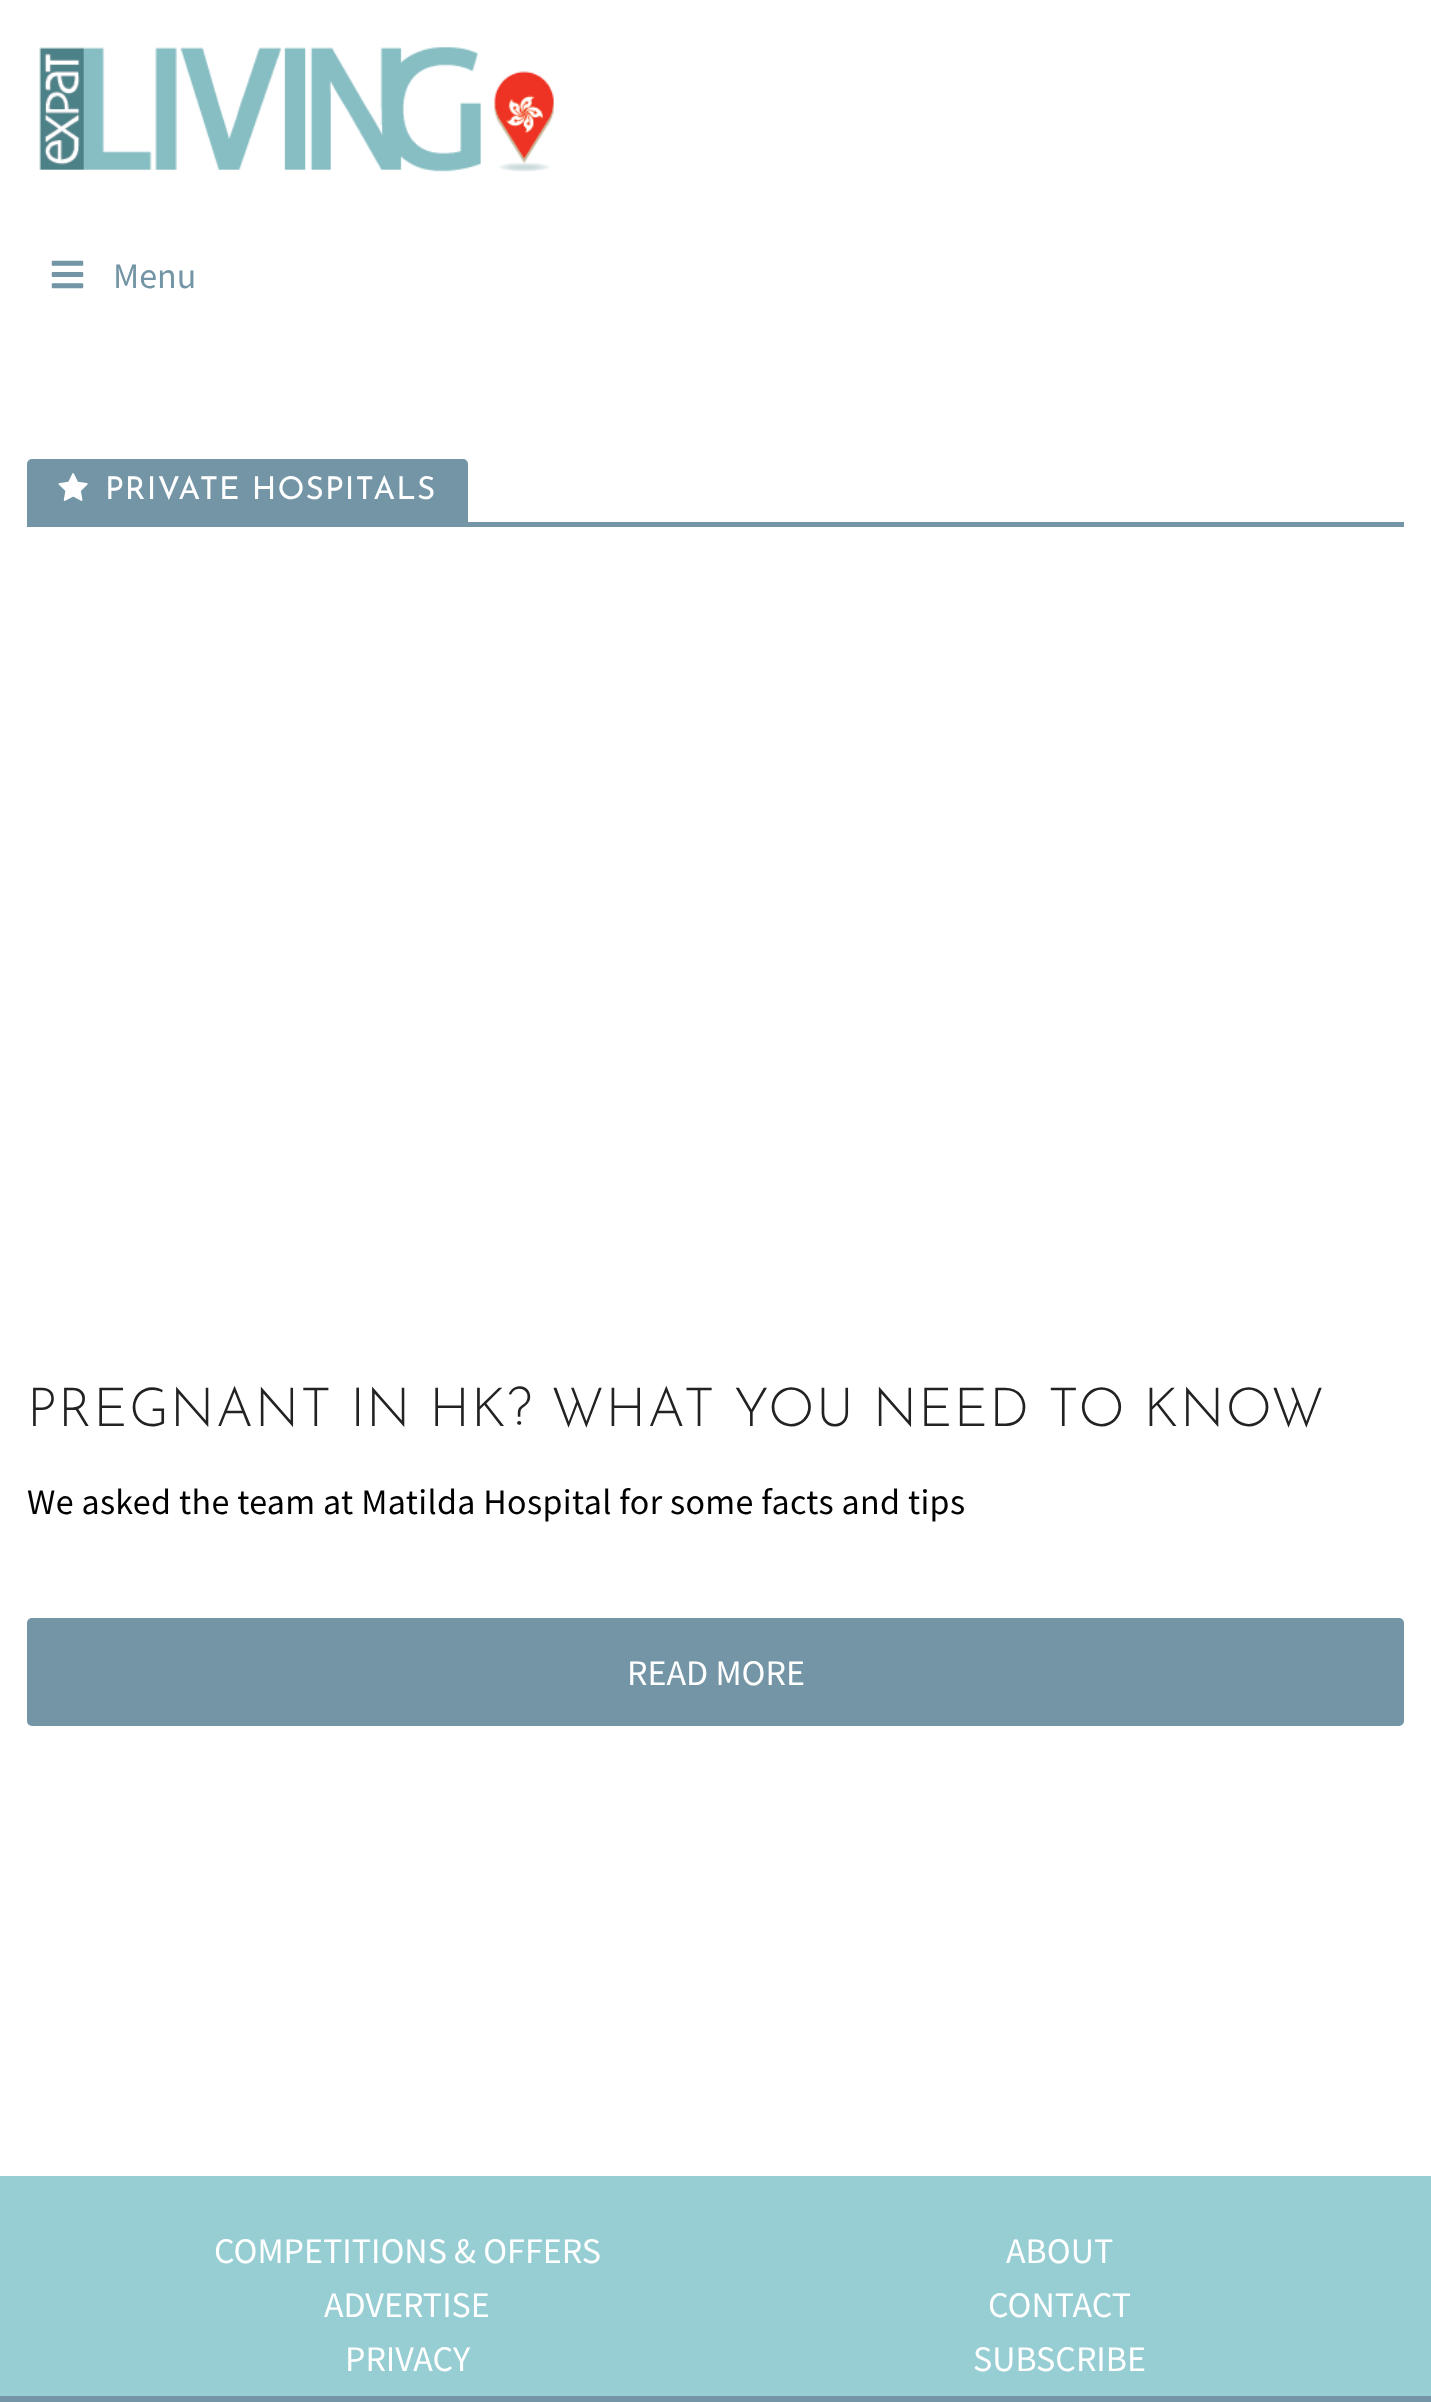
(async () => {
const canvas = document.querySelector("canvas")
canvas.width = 1431
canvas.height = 2402
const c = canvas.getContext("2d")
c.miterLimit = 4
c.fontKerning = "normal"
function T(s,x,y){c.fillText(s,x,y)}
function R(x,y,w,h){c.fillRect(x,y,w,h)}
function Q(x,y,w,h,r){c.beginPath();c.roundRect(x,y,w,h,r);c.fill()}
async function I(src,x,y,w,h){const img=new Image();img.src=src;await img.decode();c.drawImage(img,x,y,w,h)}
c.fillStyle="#fff"
R(0,0,1431,2402)
await I("1.png",39,47,516,125)
await I("2.png",51,260,33,29)
c.font="36px Source Sans Pro"
c.fillStyle="#7395a6"
T("Menu",113,288)
R(27,522,1377,5)
c.beginPath()
c.roundRect(27,459,441,63,[5,5,0,0])
c.fill()
await I("3.png",58,473,30,28)
c.letterSpacing="1.1px"
c.font="31.5px Josefin Sans"
c.fillStyle="#fff"
T("PRIVATE HOSPITALS",105,499)
c.font="300 54px Josefin Sans"
c.fillStyle="#222"
T("PREGNANT IN HK? WHAT YOU NEED TO KNOW",27,1426)
c.letterSpacing="0.35px"
c.font="36px Source Sans Pro"
c.fillStyle="#000"
T("We asked the team at Matilda Hospital for some facts and tips",27,1514)
c.fillStyle="#7395a6"
Q(27,1618,1377,108,5)
c.letterSpacing="0px"
c.fillStyle="#fff"
T("READ MORE",627,1685)
c.fillStyle="#97ced3"
R(0,2176,1431,220)
c.fillStyle="#fff"
T("COMPETITIONS & OFFERS",214,2263)
T("ABOUT",1006,2263)
T("ADVERTISE",324,2317)
T("CONTACT",988,2317)
T("PRIVACY",345,2371)
T("SUBSCRIBE",973,2371)
c.fillStyle="#7395a6"
R(0,2396,1431,6)
})()
